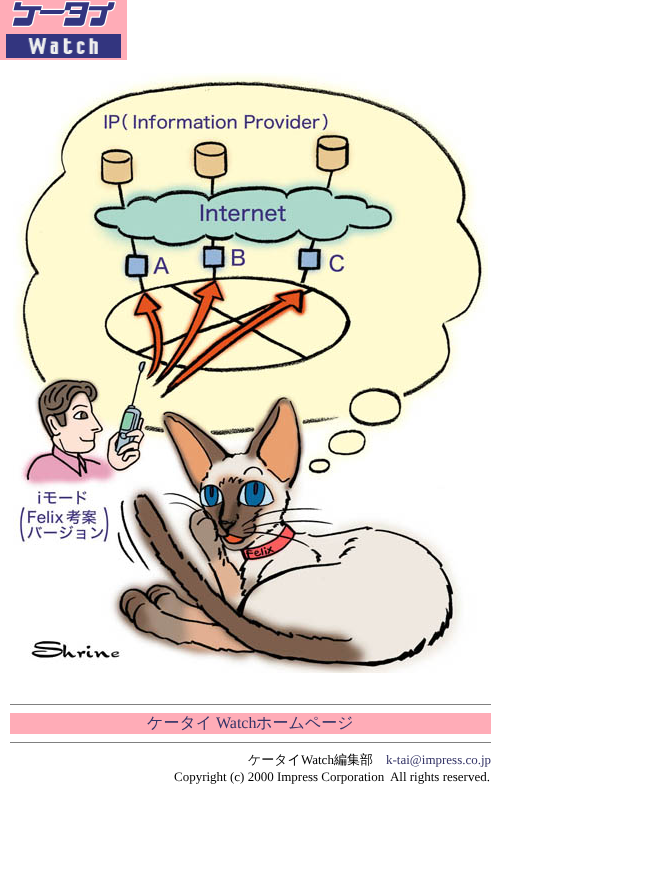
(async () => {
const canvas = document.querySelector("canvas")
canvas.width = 651
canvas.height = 886
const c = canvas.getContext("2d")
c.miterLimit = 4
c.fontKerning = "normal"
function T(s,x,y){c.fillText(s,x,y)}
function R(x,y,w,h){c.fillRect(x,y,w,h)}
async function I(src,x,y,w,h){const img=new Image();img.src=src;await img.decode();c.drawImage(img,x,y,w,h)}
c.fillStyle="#fff"
R(0,0,651,886)
c.fillStyle="#ffacb7"
R(0,0,127,60)
await I("1.png",6,1,115,57)
await I("2.png",13,73,475,600)
c.fillStyle="#808080"
R(10,704,481,1)
c.fillStyle="#ffacb7"
R(10,713,481,21)
c.font="500 16px WenQuanYi Zen Hei"
c.fillStyle="#336"
T("ケータイ",147,728)
c.font="16px Liberation Serif"
T("Watch",216,728)
c.font="500 16px WenQuanYi Zen Hei"
T("ホームページ",256,728)
c.fillStyle="#808080"
R(10,742,481,1)
c.font="500 13px WenQuanYi Zen Hei"
c.fillStyle="#000"
T("ケータイ",248,764)
c.font="13px Liberation Serif"
T("Watch",301,764)
c.font="500 13px WenQuanYi Zen Hei"
T("編集部",334,764)
c.font="13px Liberation Serif"
c.fillStyle="#336"
T("k-tai@impress.co.jp",386,764)
c.fillStyle="#000"
T("Copyright (c) 2000 Impress Corporation  All rights reserved.",174,781)
})()
